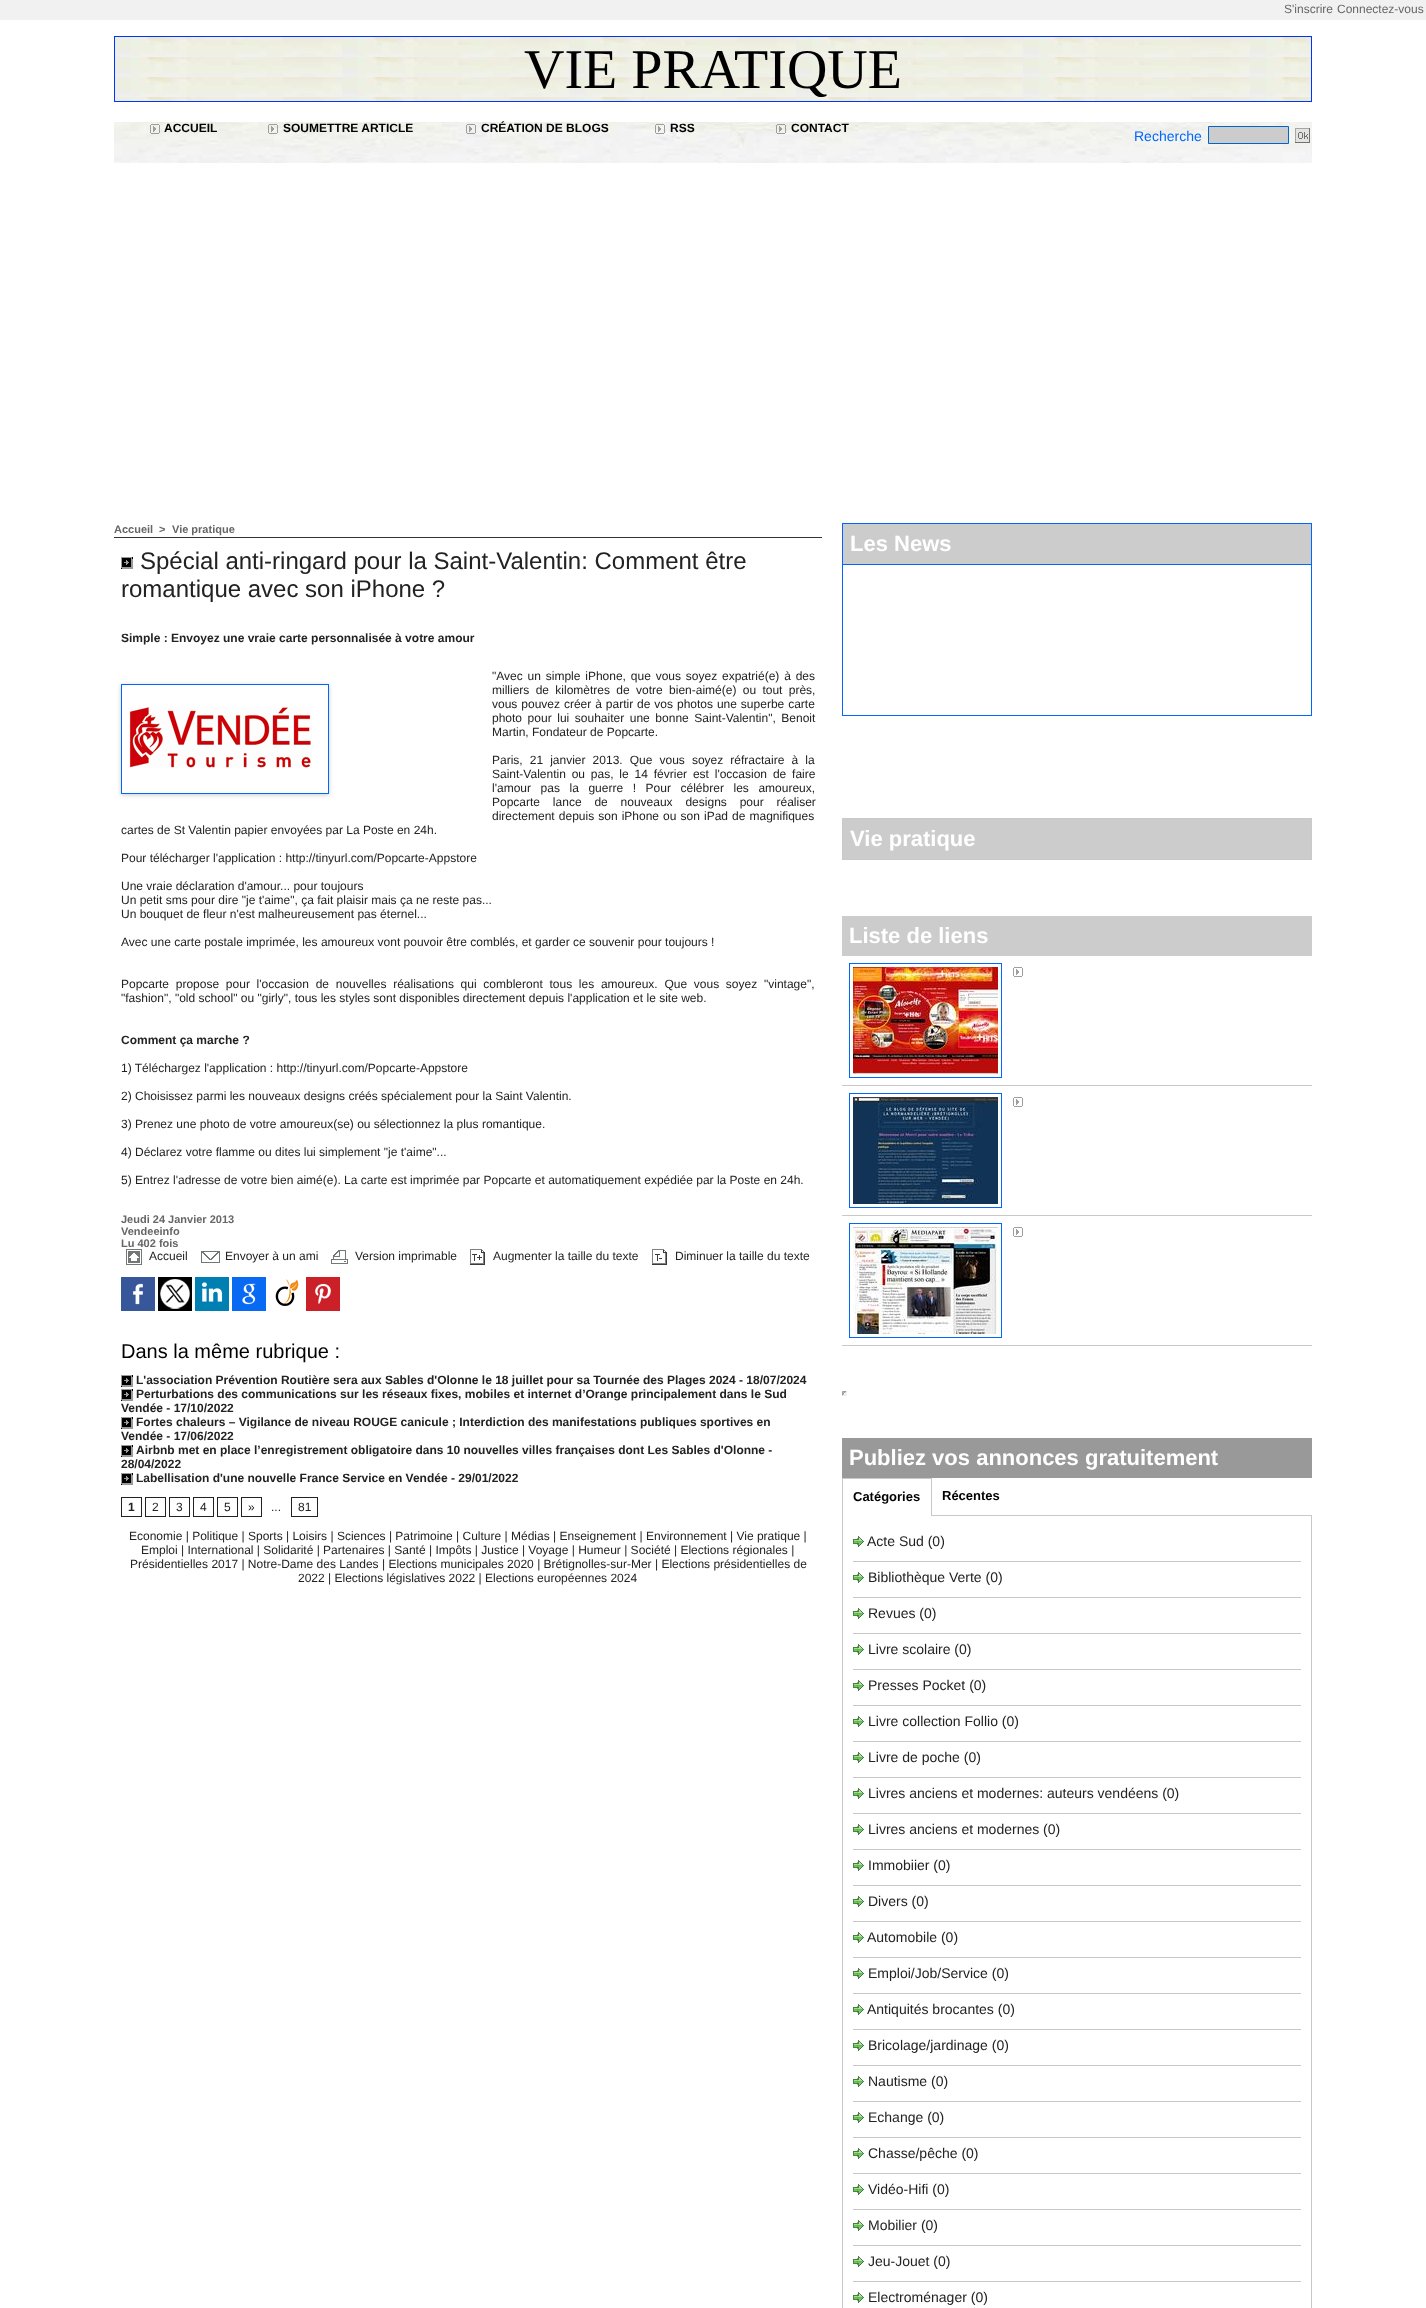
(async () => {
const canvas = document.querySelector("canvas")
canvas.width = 1426
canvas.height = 2308
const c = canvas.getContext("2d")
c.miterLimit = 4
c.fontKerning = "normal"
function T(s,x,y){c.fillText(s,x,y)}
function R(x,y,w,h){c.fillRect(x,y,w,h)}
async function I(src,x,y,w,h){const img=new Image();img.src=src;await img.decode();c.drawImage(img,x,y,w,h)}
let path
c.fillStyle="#fff"
R(0,0,1426,2308)
c.fillStyle="#f1f1f1"
R(0,0,1426,20)
c.font="12px Liberation Sans"
c.fillStyle="#666"
T("S'inscrire",1284,13)
T("Connectez-vous",1337,13)
await I("1.png",115,37,1196,64)
c.strokeStyle="#03f"
c.strokeRect(114.5,36.5,1197,65)
c.font="56px Liberation Serif"
c.fillStyle="#000"
T("VIE PRATIQUE",524,88)
await I("2.png",114,122,1198,41)
await I("3.png",150,124,10,10)
c.font="bold 12px Liberation Sans"
T("ACCUEIL",164,132)
await I("4.png",268,124,10,10)
T("SOUMETTRE ARTICLE",283,132)
await I("5.png",466,124,10,10)
T("CRÉATION DE BLOGS",481,132)
await I("6.png",655,124,10,10)
T("RSS",670,132)
await I("7.png",776,124,10,10)
T("CONTACT",791,132)
c.font="14px Liberation Sans"
c.fillStyle="#06f"
T("Recherche",1134,141)
c.fillStyle="#ccc"
c.beginPath()
c.rect(1208.5,126.5,80,17)
c.fill()
c.strokeStyle="#06c"
c.stroke()
await I("8.png",1295,128,15,15)
c.font="bold 11px Liberation Sans"
c.fillStyle="#666"
T("Accueil",114,533)
T(">",159,533)
T("Vie pratique",172,533)
c.fillStyle="#333"
R(114,537,708,1)
await I("9.png",121,557,12,12)
c.font="24px Liberation Sans"
c.fillStyle="#222"
T("Spécial anti-ringard pour la Saint-Valentin: Comment être",140,569)
T("romantique avec son iPhone ?",121,597)
c.font="bold 12px Liberation Sans"
T("Simple : Envoyez une vraie carte personnalisée à votre amour",121,642)
c.wordSpacing="1.5px"
c.font="12px Liberation Sans"
T("\"Avec un simple iPhone, que vous soyez expatrié(e) à des",492,680)
c.wordSpacing="3px"
T("milliers de kilomètres de votre bien-aimé(e) ou tout près,",492,694)
c.wordSpacing="0.6px"
T("vous pouvez créer à partir de vos photos une superbe carte",492,708)
c.wordSpacing="2.25px"
T("photo pour lui souhaiter une bonne Saint-Valentin\", Benoit",492,722)
c.wordSpacing="0px"
T("Martin, Fondateur de Popcarte.",492,736)
c.wordSpacing="3.75px"
T("Paris, 21 janvier 2013. Que vous soyez réfractaire à la",492,764)
c.wordSpacing="2.5px"
T("Saint-Valentin ou pas, le 14 février est l'occasion de faire",492,778)
c.wordSpacing="6.25px"
T("l'amour pas la guerre ! Pour célébrer les amoureux,",492,792)
c.wordSpacing="9.5px"
T("Popcarte lance de nouveaux designs pour réaliser",492,806)
c.wordSpacing="0.75px"
T("directement depuis son iPhone ou son iPad de magnifiques",492,820)
c.wordSpacing="0px"
T("cartes de St Valentin papier envoyées par La Poste en 24h.",121,834)
T("Pour télécharger l'application : http://tinyurl.com/Popcarte-Appstore",121,862)
T("Une vraie déclaration d'amour... pour toujours",121,890)
T("Un petit sms pour dire \"je t'aime\", ça fait plaisir mais ça ne reste pas...",121,904)
T("Un bouquet de fleur n'est malheureusement pas éternel...",121,918)
T("Avec une carte postale imprimée, les amoureux vont pouvoir être comblés, et garder ce souvenir pour toujours !",121,946)
c.wordSpacing="3.4px"
T("Popcarte propose pour l'occasion de nouvelles réalisations qui combleront tous les amoureux. Que vous soyez \"vintage\",",121,988)
c.wordSpacing="0px"
T("\"fashion\", \"old school\" ou \"girly\", tous les styles sont disponibles directement depuis l'application et le site web.",121,1002)
c.font="bold 12px Liberation Sans"
T("Comment ça marche ?",121,1044)
c.font="12px Liberation Sans"
T("1) Téléchargez l'application : http://tinyurl.com/Popcarte-Appstore",121,1072)
T("2) Choisissez parmi les nouveaux designs créés spécialement pour la Saint Valentin.",121,1100)
T("3) Prenez une photo de votre amoureux(se) ou sélectionnez la plus romantique.",121,1128)
T("4) Déclarez votre flamme ou dites lui simplement \"je t'aime\"...",121,1156)
T("5) Entrez l'adresse de votre bien aimé(e). La carte est imprimée par Popcarte et automatiquement expédiée par la Poste en 24h.",121,1184)
c.save()
path = new Path2D("M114 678h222v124h-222zm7 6h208v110h-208z")
c.clip(path,"evenodd")
c.fillStyle="#ccc"
c.filter="blur(2px)"
c.beginPath()
c.rect(121,685,208,110)
c.fill()
c.filter="none"
c.restore()
c.strokeStyle="#06f"
c.strokeRect(121.5,684.5,207,109)
await I("10.png",129,707,183,61)
c.font="bold 11px Liberation Sans"
c.fillStyle="#666"
T("Jeudi 24 Janvier 2013",121,1223)
T("Vendeeinfo",121,1235)
T("Lu 402 fois",121,1247)
await I("11.png",126,1249,16,16)
c.font="12px Liberation Sans"
c.fillStyle="#222"
T("Accueil",149,1260)
await I("12.png",201,1251,19,12)
T("Envoyer à un ami",225,1260)
await I("13.png",331,1250,17,14)
T("Version imprimable",355,1260)
await I("14.png",470,1249,15,16)
T("Augmenter la taille du texte",493,1260)
await I("15.png",652,1249,15,16)
T("Diminuer la taille du texte",675,1260)
await I("16.png",121,1277,34,34)
await I("17.png",158,1277,34,34)
await I("18.png",195,1277,34,34)
await I("19.png",232,1277,34,34)
await I("20.png",275,1279,24,27)
await I("21.png",306,1277,34,34)
c.font="20px Liberation Sans"
c.fillStyle="#000"
T("Dans la même rubrique :",121,1358)
await I("9.png",121,1375,12,12)
c.font="bold 12px Liberation Sans"
c.fillStyle="#222"
T("L'association Prévention Routière sera aux Sables d'Olonne le 18 juillet pour sa Tournée des Plages 2024 - 18/07/2024",136,1384)
await I("9.png",121,1389,12,12)
T("Perturbations des communications sur les réseaux fixes, mobiles et internet d’Orange principalement dans le Sud",136,1398)
T("Vendée - 17/10/2022",121,1412)
await I("9.png",121,1417,12,12)
T("Fortes chaleurs – Vigilance de niveau ROUGE canicule ; Interdiction des manifestations publiques sportives en",136,1426)
T("Vendée - 17/06/2022",121,1440)
await I("9.png",121,1445,12,12)
T("Airbnb met en place l’enregistrement obligatoire dans 10 nouvelles villes françaises dont Les Sables d'Olonne -",136,1454)
T("28/04/2022",121,1468)
await I("9.png",121,1473,12,12)
T("Labellisation d'une nouvelle France Service en Vendée - 29/01/2022",136,1482)
c.strokeStyle="#222"
c.strokeRect(121.5,1497.5,20,19)
T("1",128,1511)
c.strokeRect(145.5,1497.5,20,19)
c.font="12px Liberation Sans"
T("2",152,1511)
c.strokeRect(169.5,1497.5,20,19)
T("3",176,1511)
c.strokeRect(193.5,1497.5,20,19)
T("4",200,1511)
c.strokeRect(217.5,1497.5,20,19)
T("5",224,1511)
c.strokeRect(241.5,1497.5,20,19)
T("»",248,1511)
T("...",271,1511)
c.strokeRect(291.5,1497.5,26,19)
T("81",298,1511)
T("Economie | Politique | Sports | Loisirs | Sciences | Patrimoine | Culture | Médias | Enseignement | Environnement | Vie pratique |",129,1540)
T("Emploi | International | Solidarité | Partenaires | Santé | Impôts | Justice | Voyage | Humeur | Société | Elections régionales |",141,1554)
T("Présidentielles 2017 | Notre-Dame des Landes | Elections municipales 2020 | Brétignolles-sur-Mer | Elections présidentielles de",130,1568)
T("2022 | Elections législatives 2022 | Elections européennes 2024",298,1582)
c.fillStyle="#06f"
R(842,523,470,1)
c.fillStyle="#ccc"
R(843,524,468,40)
c.fillStyle="#06f"
R(1311,524,1,192)
R(842,564,470,1)
R(842,524,1,41)
c.font="bold 22px Liberation Sans"
c.fillStyle="#fff"
T("Les News",850,551)
c.fillStyle="#06f"
R(842,715,470,1)
R(842,565,1,151)
c.fillStyle="#c9c9c9"
R(842,818,470,1)
c.fillStyle="#ccc"
R(843,819,468,40)
c.fillStyle="#c9c9c9"
R(1311,819,1,41)
R(842,859,470,1)
R(842,819,1,41)
c.fillStyle="#fff"
T("Vie pratique",850,846)
c.fillStyle="#ccc"
R(842,916,470,40)
c.fillStyle="#fff"
T("Liste de liens",849,943)
c.fillStyle="#c9c9c9"
R(842,1085,470,1)
c.strokeStyle="#06f"
c.strokeRect(849.5,963.5,152,114)
await I("22.png",853,967,145,107)
await I("23.png",1013,967,10,10)
R(842,1215,470,1)
c.strokeRect(849.5,1093.5,152,114)
await I("24.png",853,1097,145,107)
await I("23.png",1013,1097,10,10)
R(842,1345,470,1)
c.strokeRect(849.5,1223.5,152,114)
await I("25.png",853,1227,145,107)
await I("23.png",1013,1227,10,10)
c.fillStyle="#9f9f9f"
path = new Path2D("M842 1391h5l-2 2h-1z")
c.fill(path)
c.fillStyle="#eee"
path = new Path2D("M847 1391v5l-2-2v-1z")
c.fill(path)
path = new Path2D("M847 1396h-5l2-2h1z")
c.fill(path)
c.fillStyle="#9f9f9f"
path = new Path2D("M842 1396v-5l2 2v1z")
c.fill(path)
c.fillStyle="#999"
R(842,1438,470,40)
c.fillStyle="#fff"
T("Publiez vos annonces gratuitement",849,1465)
c.strokeStyle="#c9c9c9"
c.strokeRect(842.5,1515.5,469,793)
R(843,1515,88,1)
c.fillStyle="#c9c9c9"
R(842,1478,90,1)
R(931,1478,1,38)
R(842,1478,1,38)
c.font="bold 13px Liberation Sans"
c.fillStyle="#000"
T("Catégories",853,1501)
T("Récentes",942,1500)
c.fillStyle="#c9c9c9"
R(853,1561,448,1)
await I("26.png",853,1536,11,11)
c.font="14px Liberation Sans"
c.fillStyle="#222"
T("Acte Sud (0)",867,1546)
c.fillStyle="#c9c9c9"
R(853,1597,448,1)
await I("26.png",853,1572,11,11)
c.fillStyle="#222"
T("Bibliothèque Verte (0)",868,1582)
c.fillStyle="#c9c9c9"
R(853,1633,448,1)
await I("26.png",853,1608,11,11)
c.fillStyle="#222"
T("Revues (0)",868,1618)
c.fillStyle="#c9c9c9"
R(853,1669,448,1)
await I("26.png",853,1644,11,11)
c.fillStyle="#222"
T("Livre scolaire (0)",868,1654)
c.fillStyle="#c9c9c9"
R(853,1705,448,1)
await I("26.png",853,1680,11,11)
c.fillStyle="#222"
T("Presses Pocket (0)",868,1690)
c.fillStyle="#c9c9c9"
R(853,1741,448,1)
await I("26.png",853,1716,11,11)
c.fillStyle="#222"
T("Livre collection Follio (0)",868,1726)
c.fillStyle="#c9c9c9"
R(853,1777,448,1)
await I("26.png",853,1752,11,11)
c.fillStyle="#222"
T("Livre de poche (0)",868,1762)
c.fillStyle="#c9c9c9"
R(853,1813,448,1)
await I("26.png",853,1788,11,11)
c.fillStyle="#222"
T("Livres anciens et modernes: auteurs vendéens (0)",868,1798)
c.fillStyle="#c9c9c9"
R(853,1849,448,1)
await I("26.png",853,1824,11,11)
c.fillStyle="#222"
T("Livres anciens et modernes (0)",868,1834)
c.fillStyle="#c9c9c9"
R(853,1885,448,1)
await I("26.png",853,1860,11,11)
c.fillStyle="#222"
T("Immobiier (0)",868,1870)
c.fillStyle="#c9c9c9"
R(853,1921,448,1)
await I("26.png",853,1896,11,11)
c.fillStyle="#222"
T("Divers (0)",868,1906)
c.fillStyle="#c9c9c9"
R(853,1957,448,1)
await I("26.png",853,1932,11,11)
c.fillStyle="#222"
T("Automobile (0)",867,1942)
c.fillStyle="#c9c9c9"
R(853,1993,448,1)
await I("26.png",853,1968,11,11)
c.fillStyle="#222"
T("Emploi/Job/Service (0)",868,1978)
c.fillStyle="#c9c9c9"
R(853,2029,448,1)
await I("26.png",853,2004,11,11)
c.fillStyle="#222"
T("Antiquités brocantes (0)",867,2014)
c.fillStyle="#c9c9c9"
R(853,2065,448,1)
await I("26.png",853,2040,11,11)
c.fillStyle="#222"
T("Bricolage/jardinage (0)",868,2050)
c.fillStyle="#c9c9c9"
R(853,2101,448,1)
await I("26.png",853,2076,11,11)
c.fillStyle="#222"
T("Nautisme (0)",868,2086)
c.fillStyle="#c9c9c9"
R(853,2137,448,1)
await I("26.png",853,2112,11,11)
c.fillStyle="#222"
T("Echange (0)",868,2122)
c.fillStyle="#c9c9c9"
R(853,2173,448,1)
await I("26.png",853,2148,11,11)
c.fillStyle="#222"
T("Chasse/pêche (0)",868,2158)
c.fillStyle="#c9c9c9"
R(853,2209,448,1)
await I("26.png",853,2184,11,11)
c.fillStyle="#222"
T("Vidéo-Hifi (0)",868,2194)
c.fillStyle="#c9c9c9"
R(853,2245,448,1)
await I("26.png",853,2220,11,11)
c.fillStyle="#222"
T("Mobilier (0)",868,2230)
c.fillStyle="#c9c9c9"
R(853,2281,448,1)
await I("26.png",853,2256,11,11)
c.fillStyle="#222"
T("Jeu-Jouet (0)",868,2266)
await I("26.png",853,2292,11,11)
T("Electroménager (0)",868,2302)
})()
